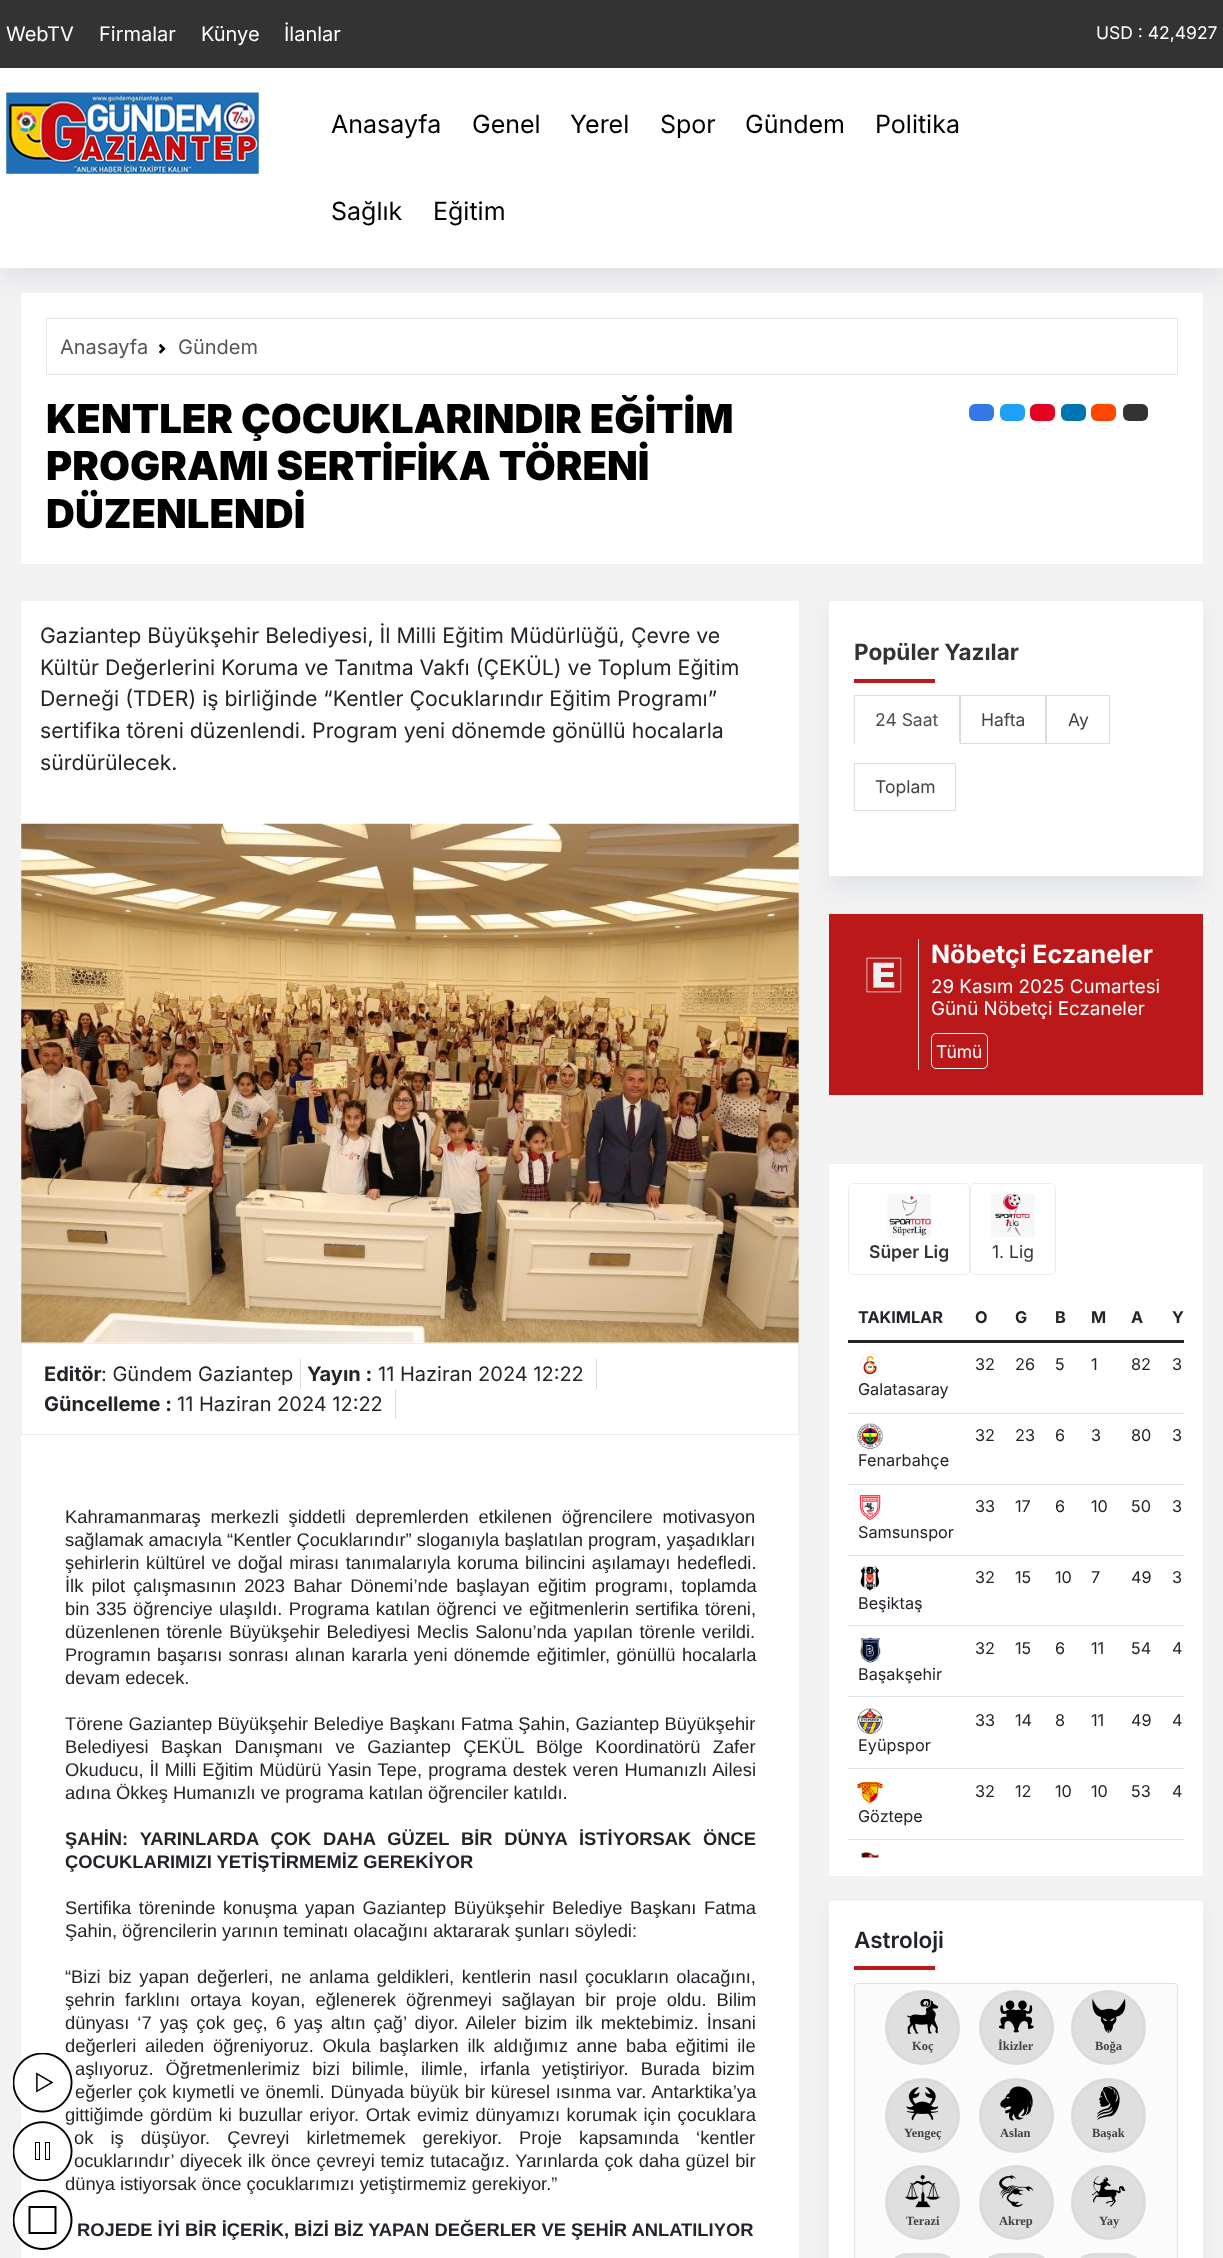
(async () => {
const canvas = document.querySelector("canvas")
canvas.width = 1223
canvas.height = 2258
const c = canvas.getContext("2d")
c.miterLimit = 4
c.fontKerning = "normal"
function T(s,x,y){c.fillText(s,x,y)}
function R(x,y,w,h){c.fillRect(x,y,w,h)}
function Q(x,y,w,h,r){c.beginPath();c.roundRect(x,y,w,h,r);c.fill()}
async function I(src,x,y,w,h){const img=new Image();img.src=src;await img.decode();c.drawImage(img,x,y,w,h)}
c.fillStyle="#f2f2f2"
R(0,0,1223,2258)
c.fillStyle="#333"
R(0,0,1223,68)
c.font="20px Inter"
c.fillStyle="#fff"
T("WebTV",6,41)
T("Firmalar",99,41)
T("Künye",201,41)
T("İlanlar",284,41)
c.font="17.5px Inter"
T("USD : 42,4927",1096,39)
c.fillStyle="#22427d14"
c.filter="blur(11px)"
c.beginPath()
c.rect(0,80,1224,200)
c.fill()
c.filter="none"
c.fillStyle="#fff"
R(0,68,1223,200)
await I("1.png",6,92,253,82)
c.font="25px Inter"
c.fillStyle="#000"
T("Anasayfa",331,133)
T("Genel",472,133)
T("Yerel",570,133)
T("Spor",660,133)
T("Gündem",745,133)
T("Politika",875,133)
T("Sağlık",331,220)
T("Eğitim",433,220)
c.fillStyle="#fff"
R(21,293,1182,271)
c.strokeStyle="#e7e7e7"
c.strokeRect(46.5,318.5,1131,56)
c.font="20px Inter"
c.fillStyle="#555"
T("Anasayfa",60,354)
await I("2.png",158,344,8,10)
T("Gündem",178,354)
c.font="900 40px Inter"
c.fillStyle="#000"
T("KENTLER ÇOCUKLARINDIR EĞİTİM",46,433)
T("PROGRAMI SERTİFİKA TÖRENİ",46,480)
T("DÜZENLENDİ",46,528)
c.fillStyle="#3578e5"
Q(969,404,25,17,6)
c.fillStyle="#1da1f2"
Q(1000,404,25,17,6)
c.fillStyle="#e60023"
Q(1030,404,25,17,6)
c.fillStyle="#0073b1"
Q(1061,404,25,17,6)
c.fillStyle="#ff4500"
Q(1091,404,25,17,6)
c.fillStyle="#333"
Q(1123,404,25,17,6)
c.fillStyle="#fff"
R(21,601,778,1657)
c.font="21.25px Inter"
c.fillStyle="#212529"
T("Gaziantep Büyükşehir Belediyesi, İl Milli Eğitim Müdürlüğü, Çevre ve",40,643)
T("Kültür Değerlerini Koruma ve Tanıtma Vakfı (ÇEKÜL) ve Toplum Eğitim",40,675)
T("Derneği (TDER) iş birliğinde “Kentler Çocuklarındır Eğitim Programı”",40,706)
T("sertifika töreni düzenlendi. Program yeni dönemde gönüllü hocalarla",40,738)
T("sürdürülecek.",40,770)
await I("3.png",21,823,778,520)
c.strokeStyle="#efecec"
c.strokeRect(21.5,1343.5,777,91)
c.fillStyle="#ddd"
R(300,1359,1,30)
c.font="bold 20px Inter"
c.fillStyle="#212529"
T("Editör",44,1381)
c.font="20px Inter"
T(": Gündem Gaziantep",101,1381)
c.fillStyle="#ddd"
R(596,1359,1,30)
c.font="bold 20px Inter"
c.fillStyle="#212529"
T("Yayın :",307,1381)
c.font="20px Inter"
T("11 Haziran 2024 12:22",378,1381)
c.fillStyle="#ddd"
R(395,1389,1,30)
c.font="bold 20px Inter"
c.fillStyle="#212529"
T("Güncelleme :",44,1411)
c.font="20px Inter"
T("11 Haziran 2024 12:22",177,1411)
c.wordSpacing="3.6px"
c.font="18.35px Liberation Sans"
T("değerleri aileden öğreniyoruz. Okula başlarken ilk aldığımız anne baba eğitimi ile",65,2052)
c.wordSpacing="1.4px"
T("gittiğimde gördüm ki buzullar eriyor. Ortak evimiz dünyamızı korumak için çocuklara",65,2121)
c.fillStyle="#fff"
Q(13,2053,60,60,25)
await I("4.png",13,2053,60,60)
c.wordSpacing="0px"
c.fillStyle="#212529"
T("dünya istiyorsak önce çocuklarımızı yetiştirmemiz gerekiyor.”",65,2190)
c.fillStyle="#fff"
Q(13,2121,60,60,25)
await I("5.png",13,2121,60,60)
Q(13,2190,60,60,25)
await I("6.png",13,2190,60,60)
c.wordSpacing="4.75px"
c.fillStyle="#212529"
T("Kahramanmaraş merkezli şiddetli depremlerden etkilenen öğrencilere motivasyon",65,1523)
c.wordSpacing="0px"
T("sağlamak amacıyla “Kentler Çocuklarındır” sloganıyla başlatılan program, yaşadıkları",65,1546)
c.wordSpacing="1.5px"
T("şehirlerin kültürel ve doğal mirası tanımalarıyla koruma bilincini aşılamayı hedefledi.",65,1569)
c.wordSpacing="3px"
T("İlk pilot çalışmasının 2023 Bahar Dönemi’nde başlayan eğitim programı, toplamda",65,1592)
c.wordSpacing="1.4px"
T("bin 335 öğrenciye ulaşıldı. Programa katılan öğrenci ve eğitmenlerin sertifika töreni,",65,1615)
c.wordSpacing="1.5px"
T("düzenlenen törenle Büyükşehir Belediyesi Meclis Salonu’nda yapılan törenle verildi.",65,1638)
c.wordSpacing="1.25px"
T("Programın başarısı sonrası alınan kararla yeni dönemde eğitimler, gönüllü hocalarla",65,1661)
c.wordSpacing="0px"
T("devam edecek.",65,1684)
c.wordSpacing="0.25px"
T("Törene Gaziantep Büyükşehir Belediye Başkanı Fatma Şahin, Gaziantep Büyükşehir",65,1730)
c.wordSpacing="7.25px"
T("Belediyesi Başkan Danışmanı ve Gaziantep ÇEKÜL Bölge Koordinatörü Zafer",65,1753)
c.wordSpacing="0.9px"
T("Okuducu, İl Milli Eğitim Müdürü Yasin Tepe, programa destek veren Humanızlı Ailesi",65,1776)
c.wordSpacing="0px"
T("adına Ökkeş Humanızlı ve programa katılan öğrenciler katıldı.",65,1799)
c.wordSpacing="6.75px"
c.font="bold 18.35px Liberation Sans"
T("ŞAHİN: YARINLARDA ÇOK DAHA GÜZEL BİR DÜNYA İSTİYORSAK ÖNCE",65,1845)
c.wordSpacing="0px"
T("ÇOCUKLARIMIZI YETİŞTİRMEMİZ GEREKİYOR",65,1868)
c.wordSpacing="2.5px"
c.font="18.35px Liberation Sans"
T("Sertifika töreninde konuşma yapan Gaziantep Büyükşehir Belediye Başkanı Fatma",65,1914)
c.wordSpacing="0px"
T("Şahin, öğrencilerin yarının teminatı olacağını aktararak şunları söyledi:",65,1937)
c.wordSpacing="2.5px"
T("“Bizi biz yapan değerleri, ne anlama geldikleri, kentlerin nasıl çocukların olacağını,",65,1983)
c.wordSpacing="5px"
T("şehrin farklını ortaya koyan, eğlenerek öğrenmeyi sağlayan bir proje oldu. Bilim",65,2006)
c.wordSpacing="3px"
T("dünyası ‘7 yaş çok geç, 6 yaş altın çağ’ diyor. Aileler bizim ilk mektebimiz. İnsani",65,2029)
c.wordSpacing="7px"
T("aşlıyoruz. Öğretmenlerimiz bizi bilimle, ilimle, irfanla yetiştiriyor. Burada bizim",75,2075)
c.wordSpacing="0.75px"
T("eğerler çok kıymetli ve önemli. Dünyada büyük bir küresel ısınma var. Antarktika’ya",75,2098)
c.wordSpacing="12px"
T("ok iş düşüyor. Çevreyi kirletmemek gerekiyor. Proje kapsamında ‘kentler",74,2144)
c.wordSpacing="0.75px"
T("ocuklarındır’ diyecek ilk önce çevreyi temiz tutacağız. Yarınlarda çok daha güzel bir",74,2167)
c.wordSpacing="0px"
c.font="bold 18.35px Liberation Sans"
T("ROJEDE İYİ BİR İÇERİK, BİZİ BİZ YAPAN DEĞERLER VE ŞEHİR ANLATILIYOR",77,2236)
c.fillStyle="#22427d14"
c.filter="blur(11px)"
c.beginPath()
c.rect(829,614,374,275)
c.fill()
c.filter="none"
c.fillStyle="#fff"
R(829,601,374,275)
c.font="bold 22.5px Inter"
c.fillStyle="#333"
T("Popüler Yazılar",854,660)
c.fillStyle="#bb1919"
R(854,679,81,4)
c.fillStyle="#ddd"
R(854,695,106,1)
R(959,695,1,49)
c.fillStyle="#fff"
R(959,743,1,1)
c.fillStyle="#ddd"
R(854,695,1,49)
c.font="17.5px Inter"
c.fillStyle="#495057"
T("24 Saat",875,726)
c.strokeStyle="#ddd"
c.strokeRect(960.5,695.5,85,48)
c.fillStyle="#444"
T("Hafta",981,726)
c.strokeRect(1046.5,695.5,63,48)
T("Ay",1068,726)
c.strokeRect(854.5,763.5,101,47)
T("Toplam",875,793)
c.fillStyle="#bb1919"
R(829,914,374,181)
c.fillStyle="#ddd"
R(918,939,1,131)
await I("7.png",866,957,36,36)
c.font="bold 25px Inter"
c.fillStyle="#fff"
T("Nöbetçi Eczaneler",931,963)
c.font="18.75px Inter"
T("29 Kasım 2025 Cumartesi",931,993)
T("Günü Nöbetçi Eczaneler",931,1015)
c.beginPath()
c.roundRect(931.5,1033.5,56,35,4.5)
c.strokeStyle="#f8f9fa"
c.stroke()
c.font="17.5px Inter"
c.fillStyle="#f8f9fa"
T("Tümü",936,1058)
c.fillStyle="#fff"
R(829,1164,374,712)
c.beginPath()
c.roundRect(848.5,1183.5,121,91,4.5)
c.strokeStyle="#efecec"
c.stroke()
await I("8.png",887,1194,45,44)
c.font="600 17.5px Inter"
c.fillStyle="#333"
T("Süper Lig",869,1258)
c.beginPath()
c.roundRect(970.5,1183.5,85,91,4.5)
c.stroke()
await I("9.png",991,1193,44,45)
c.font="17.5px Inter"
T("1. Lig",992,1258)
c.font="bold 16.25px Inter"
c.fillStyle="#212529"
T("TAKIMLAR",858,1323)
T("O",975,1323)
T("G",1015,1323)
T("B",1055,1323)
T("M",1091,1323)
T("A",1131,1323)
T("Y",1172,1323)
R(848,1340,336,3)
c.font="16.25px Inter"
T("32",975,1370)
T("26",1015,1370)
T("5",1055,1370)
T("1",1091,1370)
T("82",1131,1370)
c.fillStyle="#dee2e6"
R(848,1413,336,1)
c.fillStyle="#212529"
T("3",1172,1370)
await I("10.png",860,1352,20,26)
T("Galatasaray",858,1395)
T("32",975,1441)
T("23",1015,1441)
T("6",1055,1441)
T("3",1091,1441)
T("80",1131,1441)
c.fillStyle="#dee2e6"
R(848,1484,336,1)
c.fillStyle="#212529"
T("3",1172,1441)
await I("11.png",857,1423,26,26)
T("Fenarbahçe",858,1466)
T("33",975,1512)
T("17",1015,1512)
T("6",1055,1512)
T("10",1091,1512)
T("50",1131,1512)
c.fillStyle="#dee2e6"
R(848,1555,336,1)
c.fillStyle="#212529"
T("3",1172,1512)
await I("12.png",859,1495,22,25)
T("Samsunspor",858,1538)
T("32",975,1583)
T("15",1015,1583)
T("10",1055,1583)
T("7",1091,1583)
T("49",1131,1583)
c.fillStyle="#dee2e6"
R(848,1625,336,1)
c.fillStyle="#212529"
T("3",1172,1583)
await I("13.png",860,1566,20,25)
T("Beşiktaş",858,1609)
T("32",975,1654)
T("15",1015,1654)
T("6",1055,1654)
T("11",1091,1654)
T("54",1131,1654)
c.fillStyle="#dee2e6"
R(848,1696,336,1)
c.fillStyle="#212529"
T("4",1172,1654)
await I("14.png",860,1637,21,26)
T("Başakşehir",858,1680)
T("33",975,1726)
T("14",1015,1726)
T("8",1055,1726)
T("11",1091,1726)
T("49",1131,1726)
c.fillStyle="#dee2e6"
R(848,1768,336,1)
c.fillStyle="#212529"
T("4",1172,1726)
await I("15.png",857,1708,26,26)
T("Eyüpspor",858,1751)
T("32",975,1797)
T("12",1015,1797)
T("10",1055,1797)
T("10",1091,1797)
T("53",1131,1797)
c.fillStyle="#dee2e6"
R(848,1839,336,1)
c.fillStyle="#212529"
T("4",1172,1797)
await I("16.png",857,1782,26,22)
T("Göztepe",858,1822)
await I("17.png",861,1852,18,6)
c.fillStyle="#22427d14"
c.filter="blur(11px)"
c.beginPath()
c.rect(829,1914,374,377)
c.fill()
c.filter="none"
c.fillStyle="#fff"
R(829,1901,374,357)
c.font="600 22.5px Inter"
c.fillStyle="#212529"
T("Astroloji",854,1948)
c.fillStyle="#bb1919"
R(854,1966,81,4)
c.fillStyle="#fbfbfb"
c.beginPath()
c.roundRect(854.5,1983.5,323,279,3.5)
c.fill()
c.strokeStyle="#dfdfdf"
c.stroke()
c.fillStyle="#dfdfdf"
c.beginPath()
c.arc(922.5,2027.5,36,0,7)
c.fill()
c.strokeStyle="#dbdbdb"
c.lineWidth=3
c.stroke()
await I("18.png",907,1999,32,35)
c.font="bold 12.5px Liberation Serif"
c.fillStyle="#444"
T("Koç",912,2050)
c.fillStyle="#dfdfdf"
c.beginPath()
c.arc(1016.5,2027.5,36,0,7)
c.fill()
c.stroke()
await I("19.png",999,2000,35,33)
c.fillStyle="#444"
T("İkizler",998,2050)
c.fillStyle="#dfdfdf"
c.beginPath()
c.arc(1108.5,2027.5,36,0,7)
c.fill()
c.stroke()
await I("20.png",1092,1999,34,34)
c.fillStyle="#444"
T("Boğa",1095,2050)
c.fillStyle="#dfdfdf"
c.beginPath()
c.arc(922.5,2115.5,36,0,7)
c.fill()
c.stroke()
await I("21.png",906,2087,33,34)
c.fillStyle="#444"
T("Yengeç",904,2137)
c.fillStyle="#dfdfdf"
c.beginPath()
c.arc(1016.5,2115.5,36,0,7)
c.fill()
c.stroke()
await I("22.png",1000,2086,33,35)
c.fillStyle="#444"
T("Aslan",1000,2137)
c.fillStyle="#dfdfdf"
c.beginPath()
c.arc(1108.5,2115.5,36,0,7)
c.fill()
c.stroke()
await I("23.png",1097,2086,23,34)
c.fillStyle="#444"
T("Başak",1092,2137)
c.fillStyle="#dfdfdf"
c.beginPath()
c.arc(922.5,2202.5,36,0,7)
c.fill()
c.stroke()
await I("24.png",905,2175,35,33)
c.fillStyle="#444"
T("Terazi",906,2225)
c.fillStyle="#dfdfdf"
c.beginPath()
c.arc(1016.5,2202.5,36,0,7)
c.fill()
c.stroke()
await I("25.png",999,2175,35,32)
c.fillStyle="#444"
T("Akrep",999,2225)
c.fillStyle="#dfdfdf"
c.beginPath()
c.arc(1108.5,2202.5,36,0,7)
c.fill()
c.stroke()
await I("26.png",1092,2176,34,31)
c.fillStyle="#444"
T("Yay",1099,2225)
c.fillStyle="#dfdfdf"
c.beginPath()
c.roundRect(886.5,2254.5,72,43,36)
c.fill()
c.stroke()
c.beginPath()
c.roundRect(980.5,2254.5,72,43,36)
c.fill()
c.stroke()
c.beginPath()
c.roundRect(1072.5,2254.5,72,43,36)
c.fill()
c.stroke()
})()
